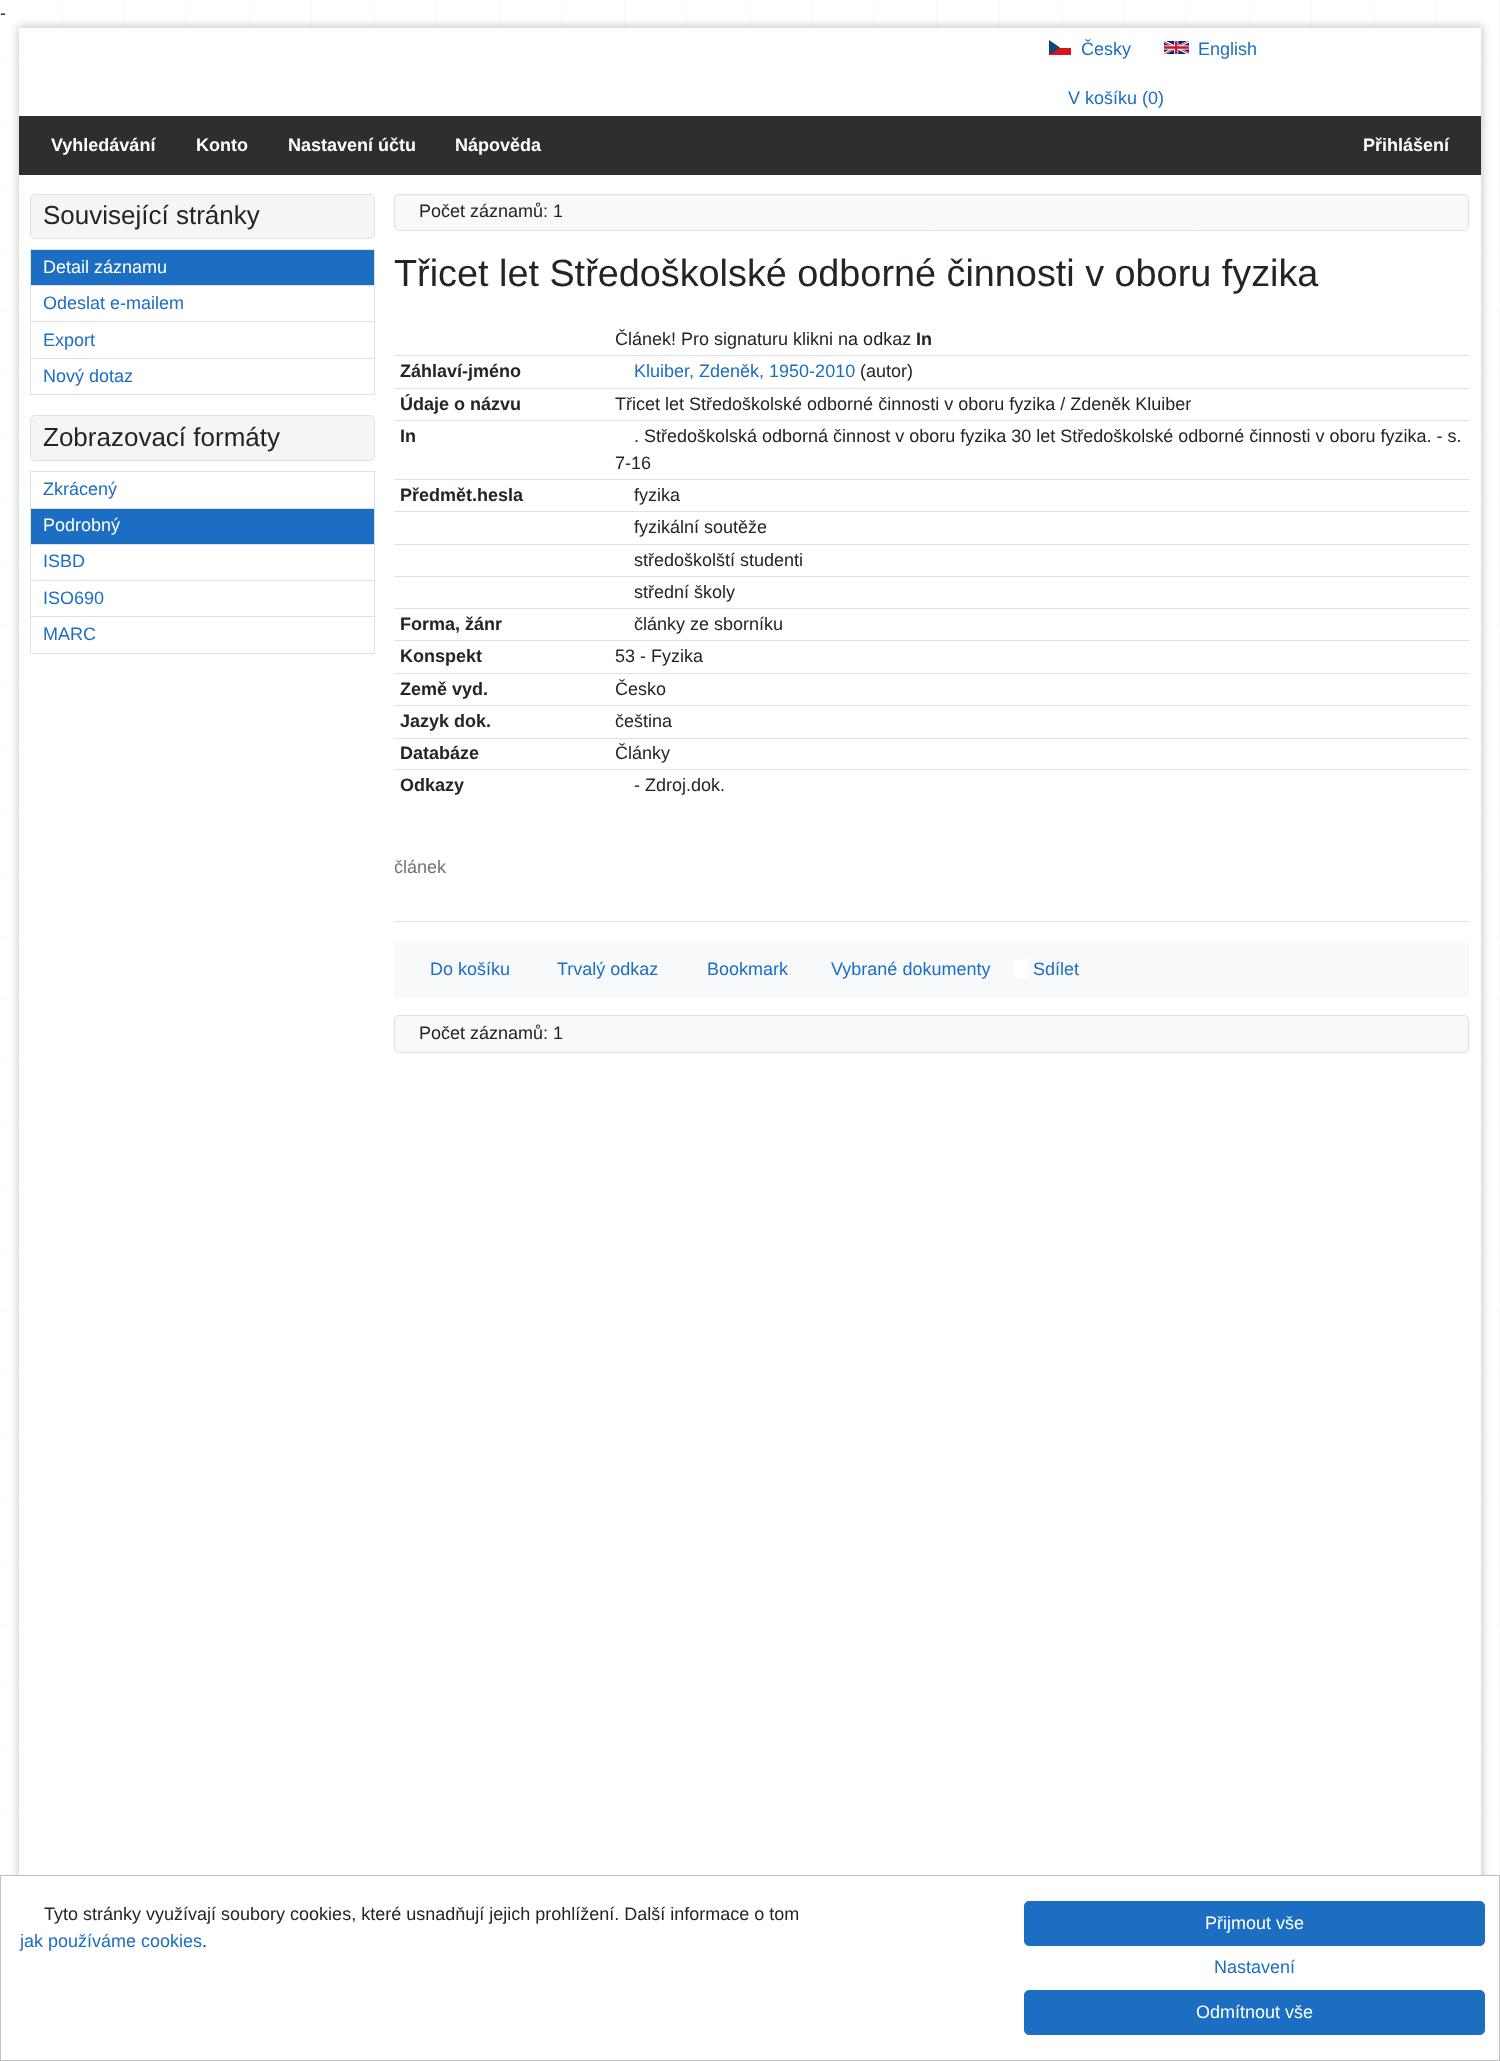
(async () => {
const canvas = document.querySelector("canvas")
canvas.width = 1500
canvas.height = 2061
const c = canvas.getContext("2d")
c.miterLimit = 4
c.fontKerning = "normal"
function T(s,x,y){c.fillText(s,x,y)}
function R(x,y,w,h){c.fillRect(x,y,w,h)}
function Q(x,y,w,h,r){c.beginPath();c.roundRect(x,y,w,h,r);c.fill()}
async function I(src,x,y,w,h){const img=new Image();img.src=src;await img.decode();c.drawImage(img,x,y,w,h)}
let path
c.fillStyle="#fff"
R(0,0,1500,2061)
await I("1.png",61,0,1439,1875)
await I("2.png",0,61,1499,1814)
c.font="18px Liberation Sans"
c.fillStyle="#212529"
T("-",0,19)
c.fillStyle="#00000033"
c.filter="blur(4px)"
c.beginPath()
c.rect(18,26,1465,1913)
c.fill()
c.filter="none"
c.fillStyle="#fff"
R(19,28,1462,1847)
c.fillStyle="#d7141a"
R(1049,48,22,7)
c.fillStyle="#11457e"
path = new Path2D("M1060 47.5l-11-7.5v15z")
c.fill(path)
c.fillStyle="#1b6ec2"
T("Česky",1081,55)
await I("3.png",1164,41,25,13)
T("English",1198,55)
T("V košíku (0)",1068,104)
c.fillStyle="#2e2e2e"
R(19,116,1462,59)
c.font="bold 18px Liberation Sans"
c.fillStyle="#fff"
T("Vyhledávání",51,151)
T("Konto",196,151)
T("Nastavení účtu",288,151)
T("Nápověda",455,151)
T("Přihlášení",1363,151)
c.fillStyle="#f5f5f5"
c.beginPath()
c.roundRect(30.5,194.5,344,44,4.5)
c.fill()
c.strokeStyle="#dee2e6"
c.stroke()
c.font="26px Liberation Sans"
c.fillStyle="#212529"
T("Související stránky",43,224)
c.fillStyle="#dee2e6"
R(30,249,345,1)
R(374,249,1,36)
R(30,249,1,36)
c.fillStyle="#1b6ec2"
R(31,250,343,35)
c.font="18px Liberation Sans"
c.fillStyle="#fff"
T("Detail záznamu",43,273)
c.fillStyle="#dee2e6"
R(30,285,345,1)
R(374,285,1,36)
R(30,285,1,36)
c.fillStyle="#1b6ec2"
T("Odeslat e-mailem",43,309)
c.fillStyle="#dee2e6"
R(30,321,345,1)
R(374,321,1,37)
R(30,321,1,37)
c.fillStyle="#1b6ec2"
T("Export",43,346)
c.strokeRect(30.5,358.5,344,36)
T("Nový dotaz",43,382)
c.fillStyle="#f5f5f5"
c.beginPath()
c.roundRect(30.5,415.5,344,45,4.5)
c.fill()
c.stroke()
c.font="26px Liberation Sans"
c.fillStyle="#212529"
T("Zobrazovací formáty",43,446)
c.fillStyle="#dee2e6"
R(30,471,345,1)
R(374,471,1,37)
R(30,471,1,37)
c.font="18px Liberation Sans"
c.fillStyle="#1b6ec2"
T("Zkrácený",43,495)
c.fillStyle="#dee2e6"
R(30,508,345,1)
R(374,508,1,36)
R(30,508,1,36)
c.fillStyle="#1b6ec2"
R(31,509,343,35)
c.fillStyle="#fff"
T("Podrobný",43,531)
c.fillStyle="#dee2e6"
R(30,544,345,1)
R(374,544,1,36)
R(30,544,1,36)
c.fillStyle="#1b6ec2"
T("ISBD",43,567)
c.fillStyle="#dee2e6"
R(30,580,345,1)
R(374,580,1,36)
R(30,580,1,36)
c.fillStyle="#1b6ec2"
T("ISO690",43,604)
c.strokeRect(30.5,616.5,344,37)
T("MARC",43,640)
c.fillStyle="#f8f9fa"
Q(394,194,1075,37,5)
c.beginPath()
c.roundRect(394.5,194.5,1074,36,4.5)
c.strokeStyle="#3333331f"
c.stroke()
c.fillStyle="#212529"
T("Počet záznamů: 1",419,217)
c.font="37.8px Liberation Sans"
T("Třicet let Středoškolské odborné činnosti v oboru fyzika",394,286)
c.font="18px Liberation Sans"
T("Článek! Pro signaturu klikni na odkaz",615,345)
c.font="bold 18px Liberation Sans"
T("In",916,345)
T("Záhlaví-jméno",400,377)
c.fillStyle="#dee2e6"
R(394,355,1075,1)
c.font="18px Liberation Sans"
c.fillStyle="#1b6ec2"
T("Kluiber, Zdeněk, 1950-2010",634,377)
c.fillStyle="#212529"
T("(autor)",860,377)
c.font="bold 18px Liberation Sans"
T("Údaje o názvu",400,410)
c.fillStyle="#dee2e6"
R(394,388,1075,1)
c.font="18px Liberation Sans"
c.fillStyle="#212529"
T("Třicet let Středoškolské odborné činnosti v oboru fyzika / Zdeněk Kluiber",615,410)
c.font="bold 18px Liberation Sans"
T("In",400,442)
c.fillStyle="#dee2e6"
R(394,420,1075,1)
c.font="18px Liberation Sans"
c.fillStyle="#212529"
T(". Středoškolská odborná činnost v oboru fyzika 30 let Středoškolské odborné činnosti v oboru fyzika. - s.",634,442)
T("7-16",615,469)
c.font="bold 18px Liberation Sans"
T("Předmět.hesla",400,501)
c.fillStyle="#dee2e6"
R(394,479,1075,1)
c.font="18px Liberation Sans"
c.fillStyle="#212529"
T("fyzika",634,501)
c.fillStyle="#dee2e6"
R(394,511,1075,1)
c.fillStyle="#212529"
T("fyzikální soutěže",634,533)
c.fillStyle="#dee2e6"
R(394,544,1075,1)
c.fillStyle="#212529"
T("středoškolští studenti",634,566)
c.fillStyle="#dee2e6"
R(394,576,1075,1)
c.fillStyle="#212529"
T("střední školy",634,598)
c.font="bold 18px Liberation Sans"
T("Forma, žánr",400,630)
c.fillStyle="#dee2e6"
R(394,608,1075,1)
c.font="18px Liberation Sans"
c.fillStyle="#212529"
T("články ze sborníku",634,630)
c.font="bold 18px Liberation Sans"
T("Konspekt",400,662)
c.fillStyle="#dee2e6"
R(394,640,1075,1)
c.font="18px Liberation Sans"
c.fillStyle="#212529"
T("53 - Fyzika",615,662)
c.font="bold 18px Liberation Sans"
T("Země vyd.",400,695)
c.fillStyle="#dee2e6"
R(394,673,1075,1)
c.font="18px Liberation Sans"
c.fillStyle="#212529"
T("Česko",615,695)
c.font="bold 18px Liberation Sans"
T("Jazyk dok.",400,727)
c.fillStyle="#dee2e6"
R(394,705,1075,1)
c.font="18px Liberation Sans"
c.fillStyle="#212529"
T("čeština",615,727)
c.font="bold 18px Liberation Sans"
T("Databáze",400,759)
c.fillStyle="#dee2e6"
R(394,738,1075,1)
c.font="18px Liberation Sans"
c.fillStyle="#212529"
T("Články",615,759)
c.font="bold 18px Liberation Sans"
T("Odkazy",400,791)
c.fillStyle="#dee2e6"
R(394,769,1075,1)
c.font="18px Liberation Sans"
c.fillStyle="#212529"
T("- Zdroj.dok.",634,791)
c.fillStyle="#6c757d"
T("článek",394,873)
c.fillStyle="#dee2e6"
R(394,921,1075,1)
c.fillStyle="#f8f9fa"
R(394,943,1075,55)
c.fillStyle="#1b6ec2"
T("Do košíku",430,975)
T("Trvalý odkaz",557,975)
T("Bookmark",707,975)
T("Vybrané dokumenty",831,975)
T("Sdílet",1033,975)
c.fillStyle="#fff"
R(1014,959,14,20)
c.fillStyle="#f8f9fa"
Q(394,1015,1075,38,5)
c.beginPath()
c.roundRect(394.5,1015.5,1074,37,4.5)
c.stroke()
c.fillStyle="#212529"
T("Počet záznamů: 1",419,1039)
c.fillStyle="#fff"
R(11,1876,1479,70)
c.strokeStyle="#c0c0c0"
c.strokeRect(.5,1875.5,1499,185)
c.fillStyle="#212529"
T("Tyto stránky využívají soubory cookies, které usnadňují jejich prohlížení. Další informace o tom",44,1920)
c.fillStyle="#1b6ec2"
T("jak používáme cookies",20,1947)
c.fillStyle="#212529"
T(".",202,1947)
c.fillStyle="#1b6ec2"
c.beginPath()
c.roundRect(1024.5,1901.5,460,44,4.5)
c.fill()
c.strokeStyle="#1b6ec2"
c.stroke()
c.fillStyle="#fff"
T("Přijmout vše",1205,1929)
c.fillStyle="#1b6ec2"
T("Nastavení",1214,1973)
c.beginPath()
c.roundRect(1024.5,1990.5,460,44,4.5)
c.fill()
c.stroke()
c.fillStyle="#fff"
T("Odmítnout vše",1196,2018)
})()
